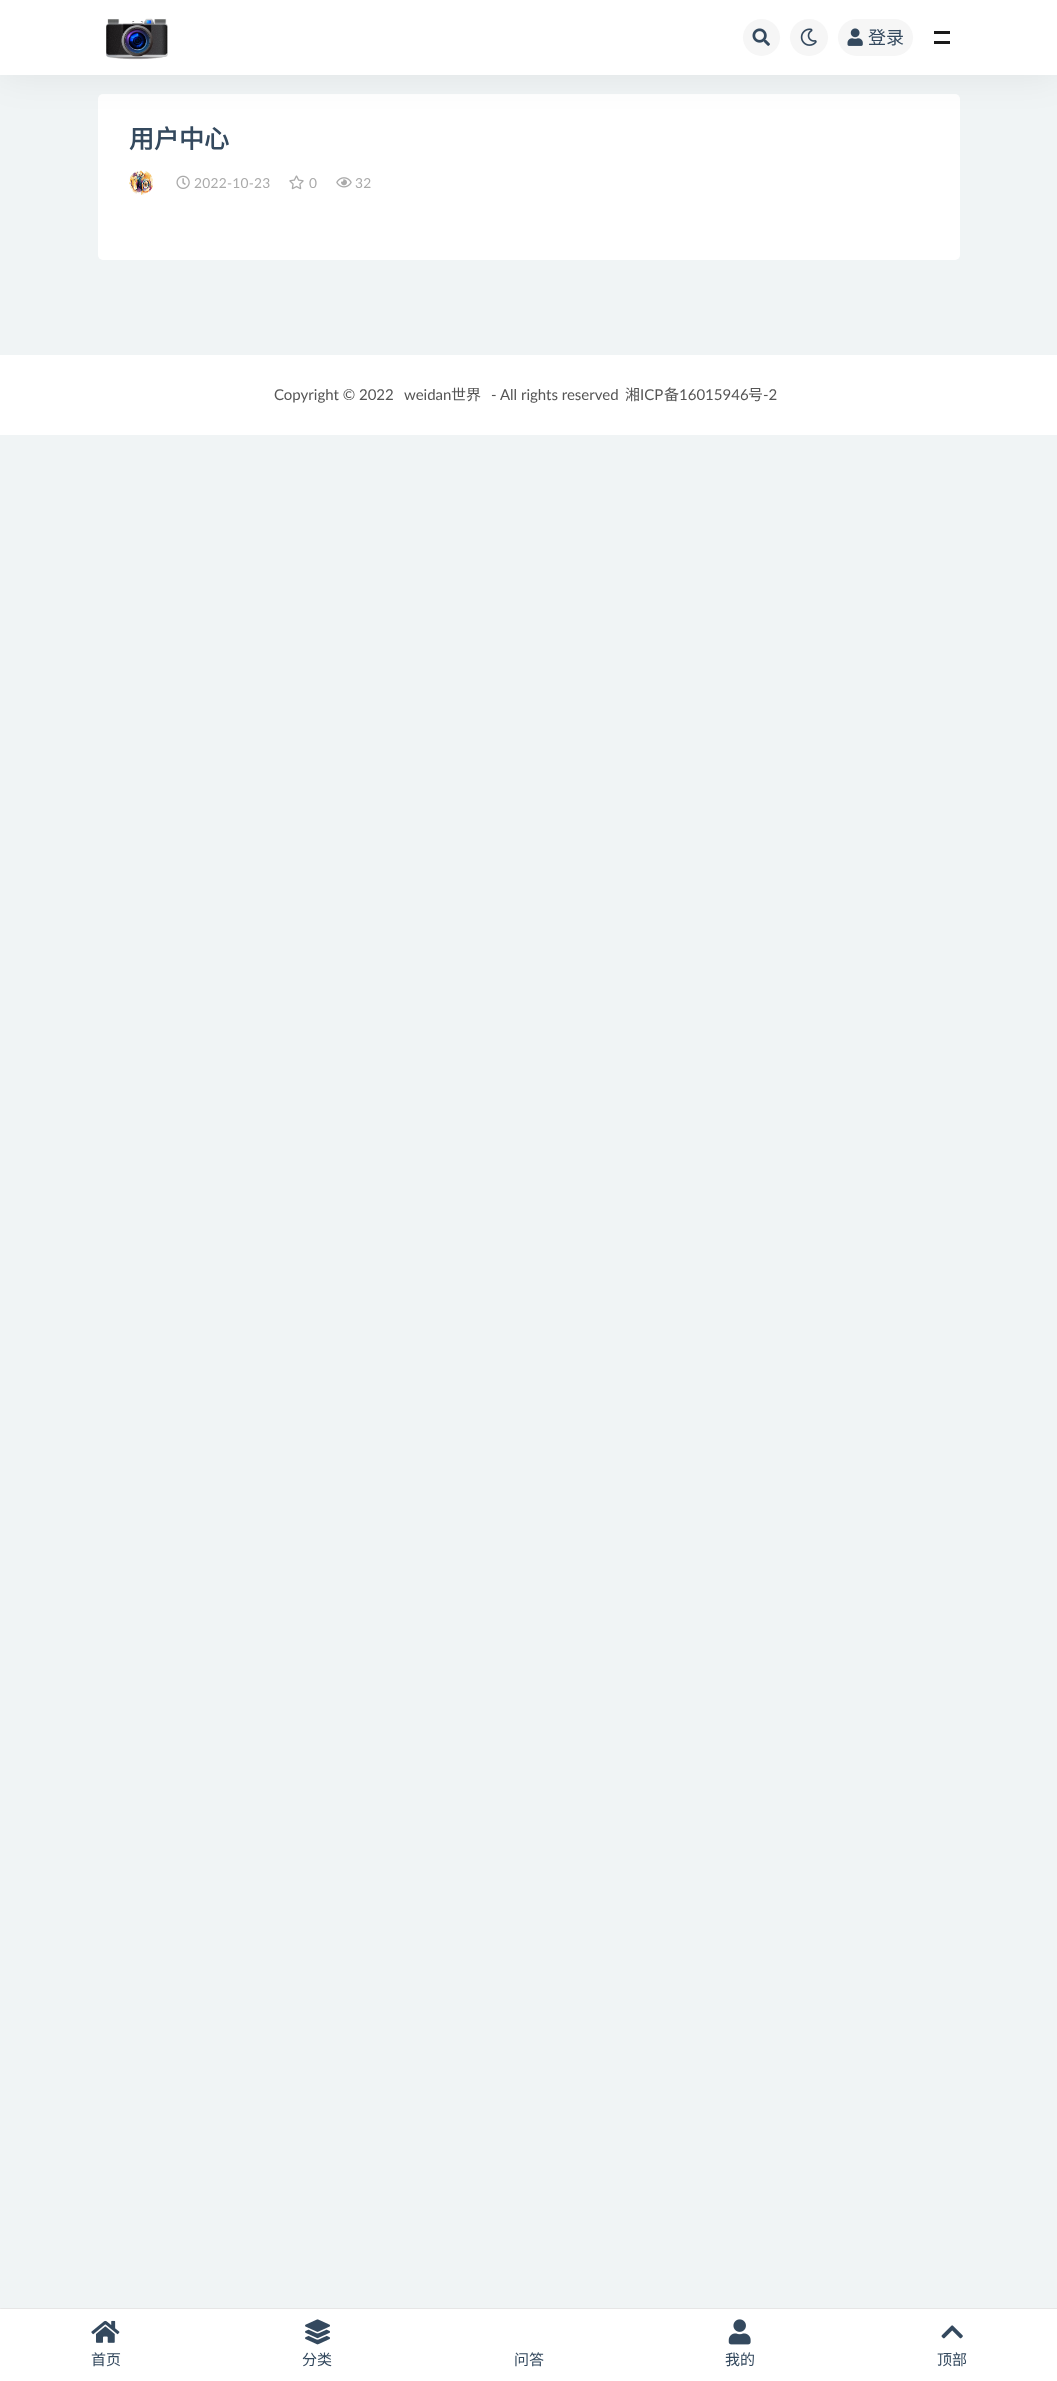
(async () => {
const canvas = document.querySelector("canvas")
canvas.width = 1057
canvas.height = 2381
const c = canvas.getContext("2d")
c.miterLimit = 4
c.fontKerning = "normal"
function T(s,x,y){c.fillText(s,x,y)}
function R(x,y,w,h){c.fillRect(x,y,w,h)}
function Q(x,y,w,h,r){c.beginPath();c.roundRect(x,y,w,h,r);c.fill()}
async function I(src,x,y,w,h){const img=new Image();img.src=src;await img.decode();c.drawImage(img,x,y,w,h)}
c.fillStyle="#f0f4f5"
R(0,0,1057,2381)
c.fillStyle="#fff"
Q(98,94,862,166,5)
c.fillStyle="#00000012"
c.filter="blur(19px)"
c.beginPath()
c.rect(0,0,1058,75)
c.fill()
c.filter="none"
c.fillStyle="#fff"
R(0,0,1057,75)
await I("1.png",106,18,62,42)
c.fillStyle="#f6f6f6"
c.beginPath()
c.arc(761.5,37.5,18.5,0,7)
c.fill()
await I("2.png",752,28,18,18)
Q(790,19,38,37,18.5)
await I("3.png",800,28,17,18)
Q(838,19,75,37,18.5)
await I("4.png",847,28,16,18)
c.font="18px Noto Sans CJK SC"
c.fillStyle="#34495e"
T("登录",868,44)
c.fillStyle="#1a1a1a"
R(934,31,16,3)
R(934,41,16,3)
c.font="bold 25px Noto Sans CJK SC"
c.fillStyle="#34495e"
T("用户中心",129,148)
await I("5.png",129,170,24,25)
await I("6.png",176,175,14,14)
c.letterSpacing="0.25px"
c.font="13.75px Lato"
c.fillStyle="#aaa"
T("2022-10-23",194,188)
await I("7.png",289,175,15,15)
T("0",309,188)
await I("8.png",336,177,16,11)
T("32",355,188)
c.fillStyle="#fff"
R(0,355,1057,80)
c.letterSpacing="0px"
c.font="15px Lato"
c.fillStyle="#555"
T("Copyright © 2022",274,400)
T("weidan",404,400)
c.font="15px Noto Sans CJK SC"
T("世界",451,400)
c.font="15px Lato"
T("- All rights reserved",491,400)
c.font="15px Noto Sans CJK SC"
T("湘",625,400)
c.font="15px Lato"
T("ICP",640,400)
c.font="15px Noto Sans CJK SC"
T("备",664,400)
c.font="15px Lato"
T("16015946",679,400)
c.font="15px Noto Sans CJK SC"
T("号",748,400)
c.font="15px Lato"
T("-2",763,400)
c.fillStyle="#fff"
R(0,2308,1057,73)
c.fillStyle="#e6e6e6"
Q(0,2308,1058,1,.5)
await I("9.png",91,2320,29,23)
c.font="15px Noto Sans CJK SC"
c.fillStyle="#34495e"
T("首页",91,2365)
await I("10.png",305,2319,25,26)
T("分类",302,2365)
T("问答",514,2365)
await I("11.png",728,2319,23,26)
T("我的",725,2365)
await I("12.png",941,2325,22,14)
T("顶部",937,2365)
})()
